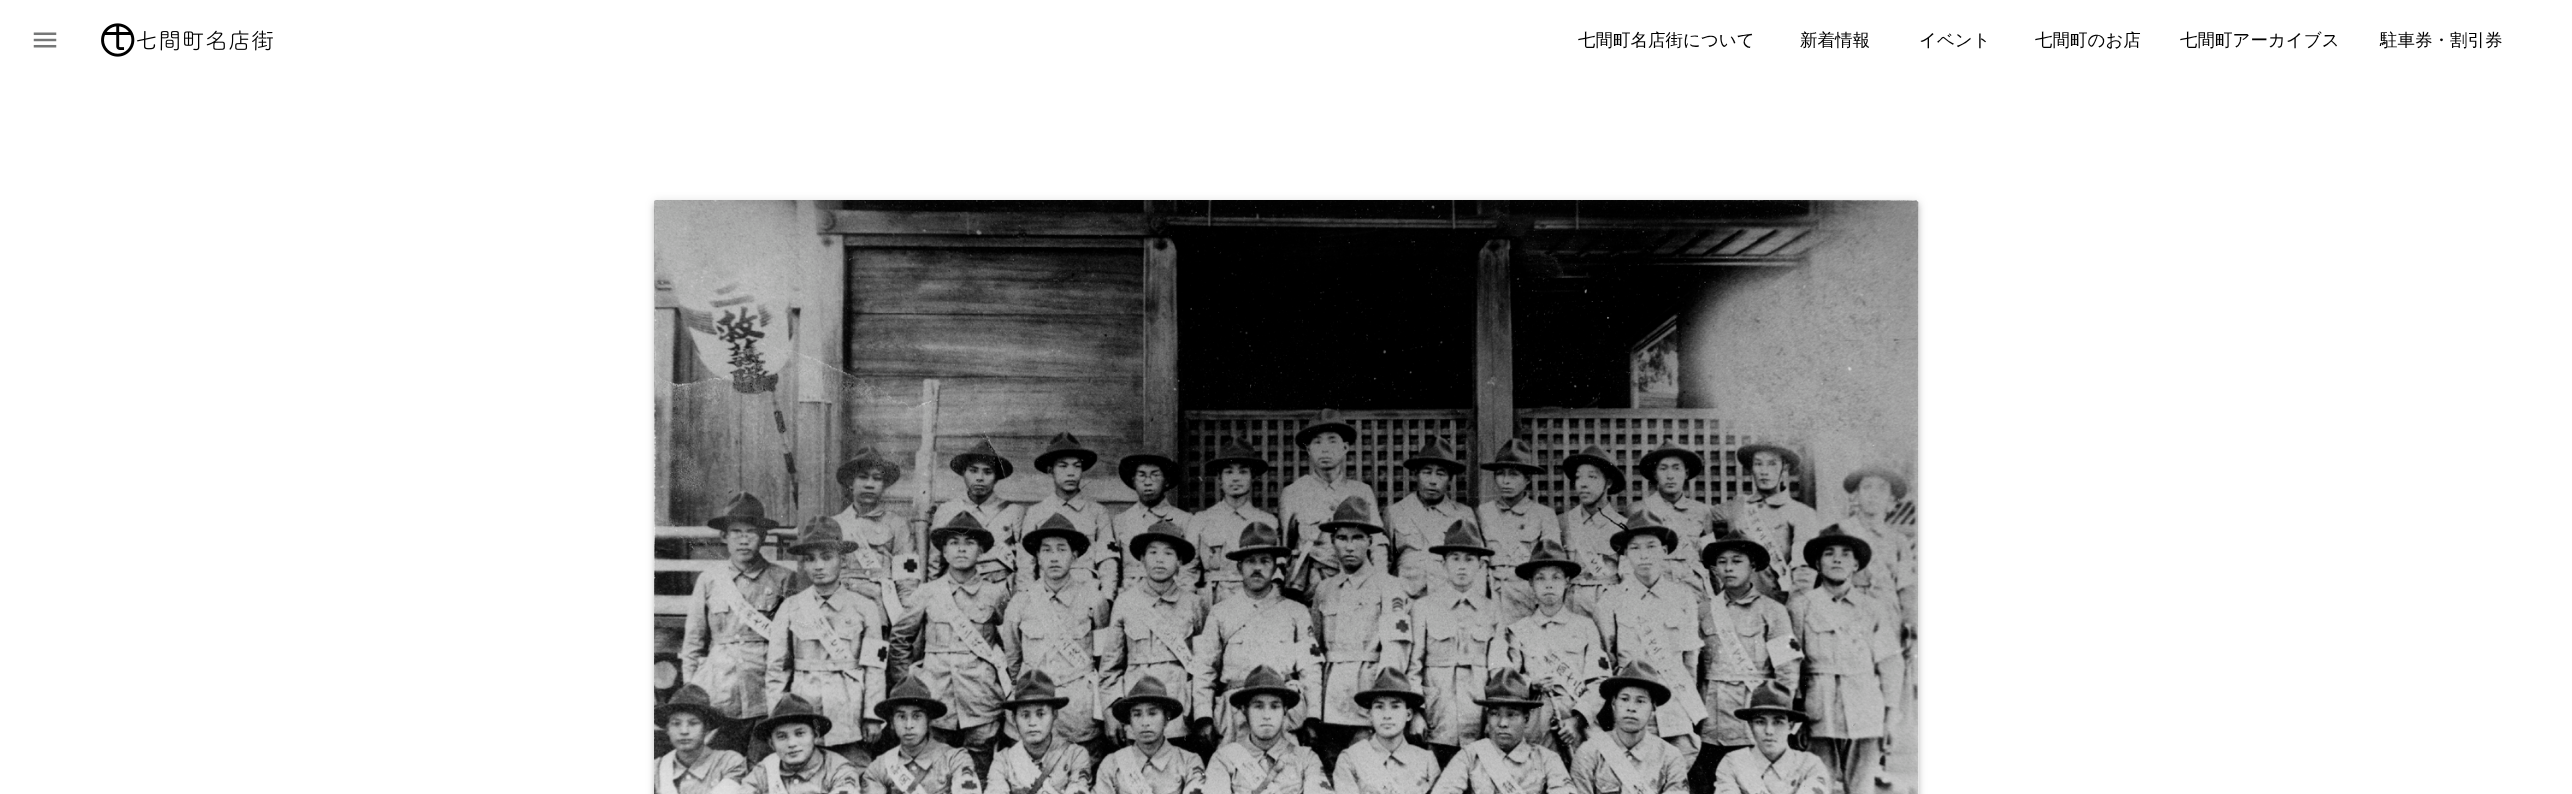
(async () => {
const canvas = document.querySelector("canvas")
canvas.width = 2572
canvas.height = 794
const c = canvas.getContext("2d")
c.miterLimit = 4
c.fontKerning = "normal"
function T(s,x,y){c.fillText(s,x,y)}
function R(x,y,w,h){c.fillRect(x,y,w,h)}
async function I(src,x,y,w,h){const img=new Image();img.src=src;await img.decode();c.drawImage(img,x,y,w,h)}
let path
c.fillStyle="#fff"
R(0,0,2572,794)
await I("1.png",33,32,24,16)
await I("2.png",101,23,172,34)
c.font="500 17.5px WenQuanYi Zen Hei"
c.fillStyle="#000"
T("七間町名店街について",1578,46)
T("新着情報",1800,46)
T("イベント",1919,46)
T("七間町のお店",2035,46)
T("七間町アーカイブス",2180,46)
T("駐車券・割引券",2380,46)
c.fillStyle="#0000001f"
c.filter="blur(5px)"
c.beginPath()
c.roundRect(654,201,1265,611,2.5)
c.fill()
c.filter="none"
c.fillStyle="#00000024"
c.filter="blur(2.5px)"
c.beginPath()
c.roundRect(654,204,1265,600,2.5)
c.fill()
c.filter="none"
c.fillStyle="#fff"
path = new Path2D("M656.5 200h1260c1.5 0 2.5 1 2.5 2.5v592.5h-1265v-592.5c0-1.5 1-2.5 2.5-2.5z")
c.fill(path)
await I("3.png",654,200,1265,594)
})()
